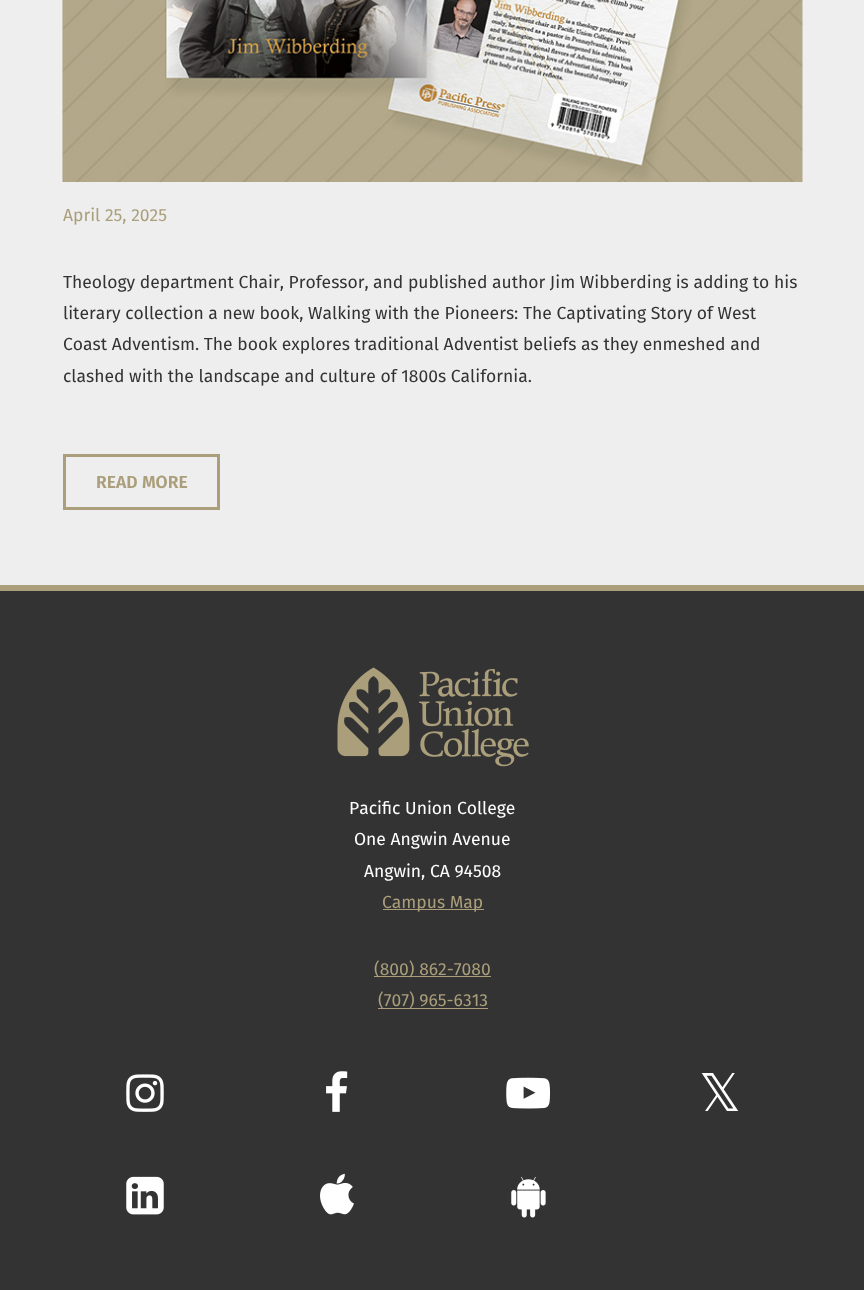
(async () => {
const canvas = document.querySelector("canvas")
canvas.width = 864
canvas.height = 1290
const c = canvas.getContext("2d")
c.miterLimit = 4
c.fontKerning = "none"
function T(s,x,y){c.fillText(s,x,y)}
function R(x,y,w,h){c.fillRect(x,y,w,h)}
async function I(src,x,y,w,h){const img=new Image();img.src=src;await img.decode();c.drawImage(img,x,y,w,h)}
c.fillStyle="#eee"
R(0,0,864,1290)
await I("1.png",62,0,741,182)
c.font="17.5px Fira Sans"
c.fillStyle="#aa9e7b"
T("April 25, 2025",63,221)
c.fillStyle="#333"
T("Theology department Chair, Professor,",63,288)
T("and published author Jim Wibberding is adding to his",373,288)
T("literary collection a new book, Walking with the Pioneers: The Captivating Story of West",63,319)
T("Coast Adventism. The book explores traditional Adventist beliefs as they enmeshed and",63,350)
T("clashed with the landscape and culture of 1800s California.",63,382)
c.strokeStyle="#aa9e7b"
c.lineWidth=3
c.strokeRect(64.5,455.5,154,53)
c.font="600 17.5px Fira Sans"
c.fillStyle="#aa9e7b"
T("READ MORE",96,488)
c.fillStyle="#333"
R(0,591,864,699)
c.fillStyle="#aa9e7b"
R(0,585,864,6)
await I("2.png",337,667,192,100)
c.font="17.5px Fira Sans"
c.fillStyle="#fff"
T("Pacific Union College",349,814)
T("One Angwin Avenue",354,845)
T("Angwin, CA 94508",364,877)
c.fillStyle="#aa9e7b"
R(383,909,101,1)
T("Campus Map",382,908)
R(374,976,117,1)
T("(800) 862-7080",374,975)
R(378,1008,110,1)
T("(707) 965-6313",378,1006)
await I("3.png",126,1074,38,38)
await I("4.png",326,1071,22,41)
await I("5.png",506,1077,44,32)
c.font="52px DejaVu Sans"
c.fillStyle="#fff"
T("𝕏",699,1111)
await I("6.png",126,1176,38,39)
await I("7.png",320,1173,34,42)
await I("8.png",511,1176,35,42)
})()
